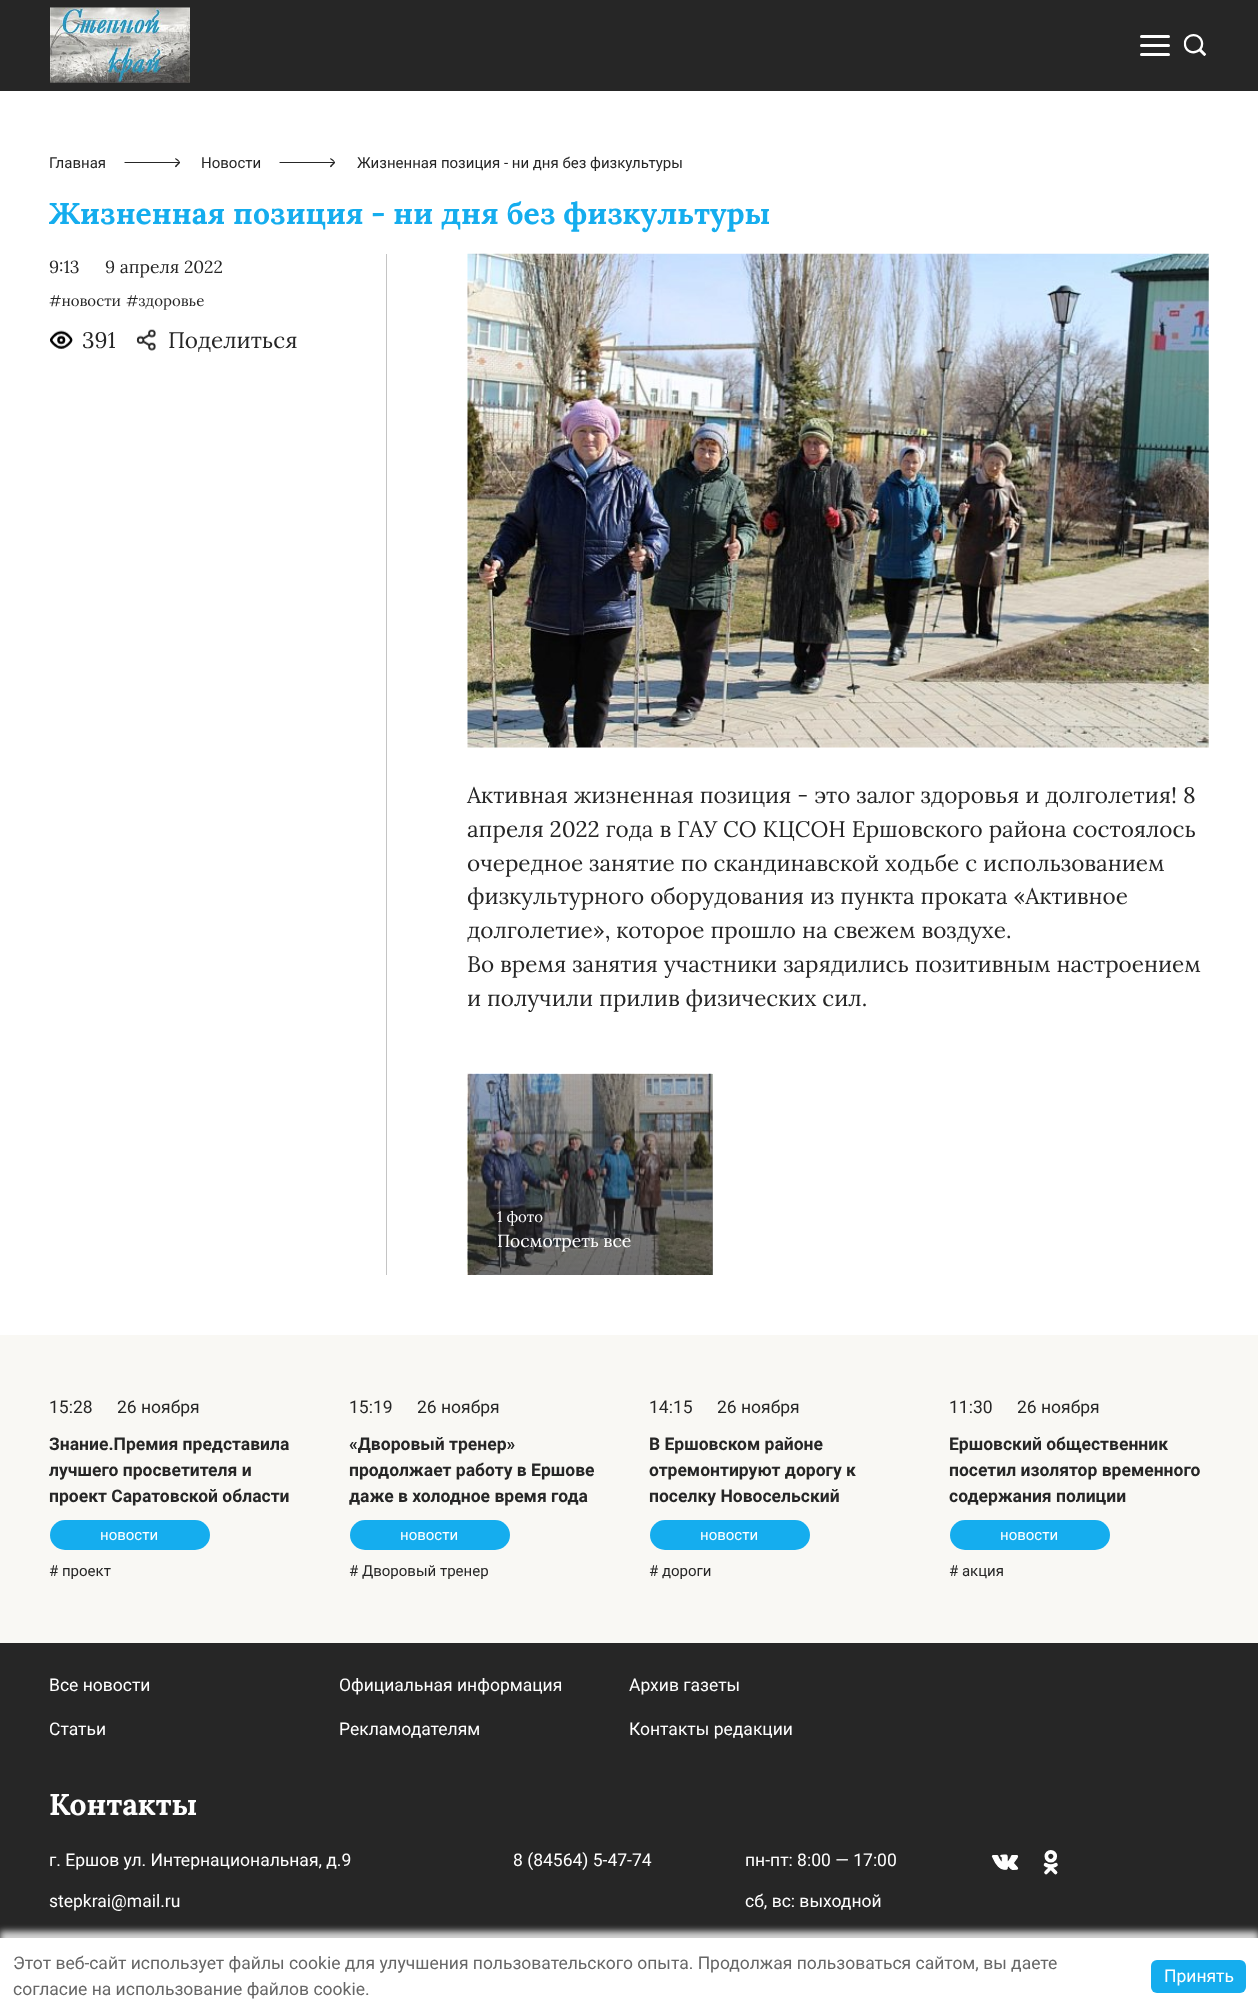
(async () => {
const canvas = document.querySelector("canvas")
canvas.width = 1258
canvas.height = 2014
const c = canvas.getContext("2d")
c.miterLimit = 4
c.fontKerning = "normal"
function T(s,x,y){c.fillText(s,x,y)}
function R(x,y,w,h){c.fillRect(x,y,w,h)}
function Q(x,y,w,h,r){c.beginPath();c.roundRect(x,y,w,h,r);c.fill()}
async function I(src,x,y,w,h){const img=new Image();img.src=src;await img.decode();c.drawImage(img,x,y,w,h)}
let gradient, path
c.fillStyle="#fff"
R(0,0,1258,2014)
c.fillStyle="#262626"
R(0,0,1258,91)
await I("1.png",50,7,140,76)
c.fillStyle="#fff"
Q(1140,35,30,3,1.5)
Q(1140,44,30,3,1.5)
Q(1140,53,30,3,1.5)
await I("2.png",1183,34,24,22)
c.font="15px Roboto"
c.fillStyle="#262626"
T("Главная",49,168)
path = new Path2D("M125 162c-1 0-1 1 0 1zm55 1c1-1-5-7-5-4l4 3l-4 4c0 2 2 1 2 0zm-55 0h55v-1h-55z")
c.fill(path)
T("Новости",201,168)
path = new Path2D("M280 162c-1 0-1 1 0 1zm55 1c1-1-5-7-5-4l4 3l-4 4c0 2 2 1 2 0zm-55 0h55v-1h-55z")
c.fill(path)
T("Жизненная позиция - ни дня без физкультуры",357,168)
c.font="bold 30px Lora"
c.fillStyle="#15adee"
T("Жизненная позиция - ни дня без физкультуры",49,224)
c.fillStyle="#c4c4c4"
R(386,254,1,1021)
c.font="17.5px Lora"
c.fillStyle="#262626"
T("9:13",49,273)
T("9 апреля 2022",105,273)
c.font="15px Lora"
T("#новости",49,306)
T("#здоровье",126,306)
await I("3.png",50,330,23,19)
c.font="22.5px Lora"
T("391",82,348)
await I("4.png",136,329,20,22)
T("Поделиться",168,348)
await I("5.png",467,253,742,495)
T("Активная жизненная позиция - это залог здоровья и долголетия! 8",467,803)
T("апреля 2022 года в ГАУ СО КЦСОН Ершовского района состоялось",467,837)
T("очередное занятие по скандинавской ходьбе с использованием",467,871)
T("физкультурного оборудования из пункта проката «Активное",467,904)
T("долголетие», которое прошло на свежем воздухе.",467,938)
T("Во время занятия участники зарядились позитивным настроением",467,972)
T("и получили прилив физических сил.",467,1006)
await I("6.png",467,1073,246,202)
gradient = c.createLinearGradient(590,1074,590,1275)
gradient.addColorStop(0,"#2626264d")
gradient.addColorStop(1,"#26262699")
c.fillStyle = gradient
R(468,1074,245,201)
c.font="15px Lora"
c.fillStyle="#fff"
T("1 фото",497,1222)
c.font="17.5px Lora"
T("Посмотреть все",497,1247)
c.fillStyle="#f9f8f4"
R(0,1335,1258,308)
c.font="17.5px Roboto"
c.fillStyle="#262626"
T("15:28",49,1413)
T("26 ноября",117,1413)
c.font="bold 17.5px Roboto"
T("Знание.Премия представила",49,1450)
T("лучшего просветителя и",49,1476)
T("проект Саратовской области",49,1502)
c.fillStyle="#15adee"
Q(50,1520,160,30,15)
c.font="15px Roboto"
c.fillStyle="#fff"
T("новости",100,1540)
c.fillStyle="#262626"
T("# проект",49,1576)
c.font="17.5px Roboto"
T("15:19",349,1413)
T("26 ноября",417,1413)
c.font="bold 17.5px Roboto"
T("«Дворовый тренер»",349,1450)
T("продолжает работу в Ершове",349,1476)
T("даже в холодное время года",349,1502)
c.fillStyle="#15adee"
Q(350,1520,160,30,15)
c.font="15px Roboto"
c.fillStyle="#fff"
T("новости",400,1540)
c.fillStyle="#262626"
T("# Дворовый тренер",349,1576)
c.font="17.5px Roboto"
T("14:15",649,1413)
T("26 ноября",717,1413)
c.font="bold 17.5px Roboto"
T("В Ершовском районе",649,1450)
T("отремонтируют дорогу к",649,1476)
T("поселку Новосельский",649,1502)
c.fillStyle="#15adee"
Q(650,1520,160,30,15)
c.font="15px Roboto"
c.fillStyle="#fff"
T("новости",700,1540)
c.fillStyle="#262626"
T("# дороги",649,1576)
c.font="17.5px Roboto"
T("11:30",949,1413)
T("26 ноября",1017,1413)
c.font="bold 17.5px Roboto"
T("Ершовский общественник",949,1450)
T("посетил изолятор временного",949,1476)
T("содержания полиции",949,1502)
c.fillStyle="#15adee"
Q(950,1520,160,30,15)
c.font="15px Roboto"
c.fillStyle="#fff"
T("новости",1000,1540)
c.fillStyle="#262626"
T("# акция",949,1576)
R(0,1643,1258,295)
c.font="17.5px Roboto"
c.fillStyle="#fff"
T("Все новости",49,1691)
T("Официальная информация",339,1691)
T("Архив газеты",629,1691)
T("Статьи",49,1735)
T("Рекламодателям",339,1735)
T("Контакты редакции",629,1735)
c.font="bold 30px Lora"
T("Контакты",49,1815)
c.font="17.5px Roboto"
T("г. Ершов ул. Интернациональная, д.9",49,1866)
T("stepkrai@mail.ru",49,1907)
T("8 (84564) 5-47-74",513,1866)
T("пн-пт: 8:00 — 17:00",745,1866)
T("сб, вс: выходной",745,1907)
await I("7.png",991,1854,28,16)
await I("8.png",1043,1850,15,25)
c.fillStyle="#d2d2d2"
c.filter="blur(3px)"
c.beginPath()
c.rect(0,1931,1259,78)
c.fill()
c.filter="none"
c.fillStyle="#fff"
R(0,1938,1258,76)
c.fillStyle="#666"
T("Этот веб-сайт использует файлы cookie для улучшения пользовательского опыта. Продолжая пользоваться сайтом, вы даете",13,1969)
T("согласие на использование файлов cookie.",13,1995)
c.fillStyle="#15adee"
Q(1151,1960,95,33,6)
c.fillStyle="#fff"
T("Принять",1164,1982)
})()
